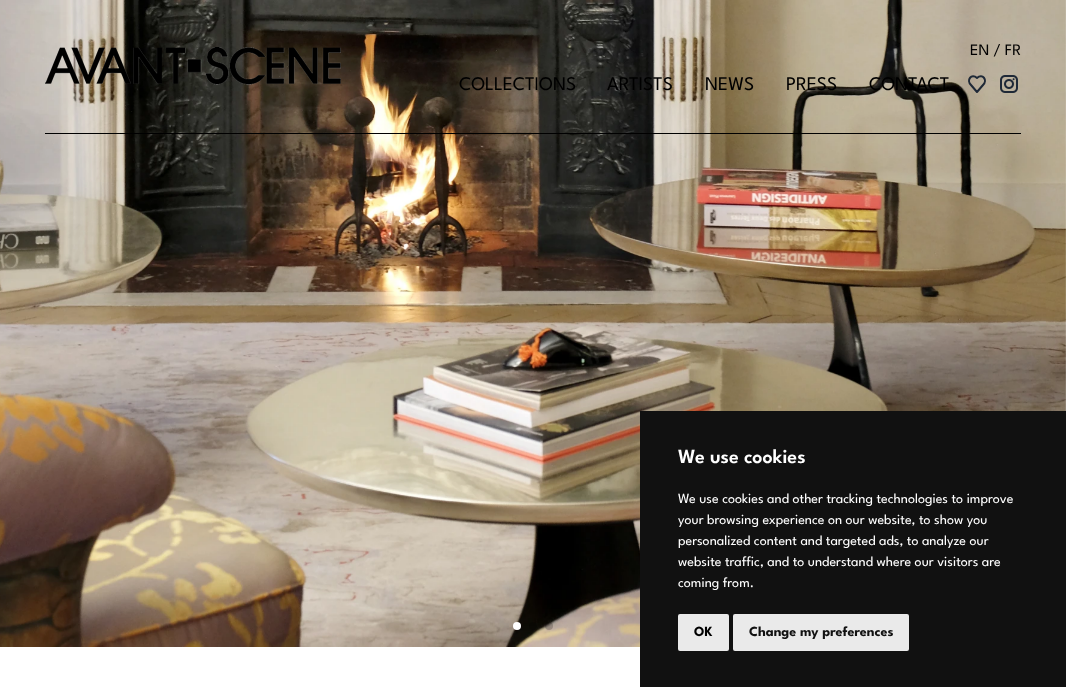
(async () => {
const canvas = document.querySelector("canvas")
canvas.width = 1066
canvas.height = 687
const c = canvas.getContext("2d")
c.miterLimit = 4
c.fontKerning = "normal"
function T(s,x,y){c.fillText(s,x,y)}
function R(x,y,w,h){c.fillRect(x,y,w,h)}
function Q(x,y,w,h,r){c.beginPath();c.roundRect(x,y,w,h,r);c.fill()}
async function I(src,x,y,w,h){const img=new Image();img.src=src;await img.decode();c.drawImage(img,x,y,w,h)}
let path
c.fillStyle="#fff"
R(0,0,1066,687)
await I("2.png",1065,0,1,411)
await I("1.png",0,0,1066,647)
c.beginPath()
c.arc(517,626,4,0,7)
c.fill()
c.fillStyle="#00000033"
c.beginPath()
c.arc(533,626,4,0,7)
c.fill()
c.beginPath()
c.arc(549,626,4,0,7)
c.fill()
c.fillStyle="#000"
R(45,133,976,1)
await I("3.png",45,47,296,38)
c.font="16px League Spartan"
T("EN / FR",970,55)
c.font="19.25px League Spartan"
T("COLLECTIONS",459,90)
T("ARTISTS",607,90)
T("NEWS",705,90)
T("PRESS",786,90)
T("CONTACT",869,90)
path = new Path2D("M977 78c-5.5-5-11 2-6 7l6 7l6-7c5-5-.5-12-6-7z")
c.strokeStyle="#1f2937"
c.lineWidth=2
c.lineCap="round"
c.lineJoin="round"
c.stroke(path)
await I("4.png",1000,75,18,18)
c.fillStyle="#111"
R(640,411,426,276)
c.font="600 20px League Spartan"
c.fillStyle="#fff"
T("We use cookies",678,463)
c.font="14px League Spartan"
T("We use cookies and other tracking technologies to improve",678,503)
T("your browsing experience on our website, to show you",678,524)
T("personalized content and targeted ads, to analyze our",678,545)
T("website traffic, and to understand where our visitors are",678,566)
T("coming from.",678,587)
c.fillStyle="#eaeaea"
Q(678,614,51,37,2)
c.font="bold 14px League Spartan"
c.fillStyle="#000"
T("OK",694,636)
c.fillStyle="#eaeaea"
Q(733,614,176,37,2)
c.fillStyle="#111"
T("Change my preferences",749,636)
})()
